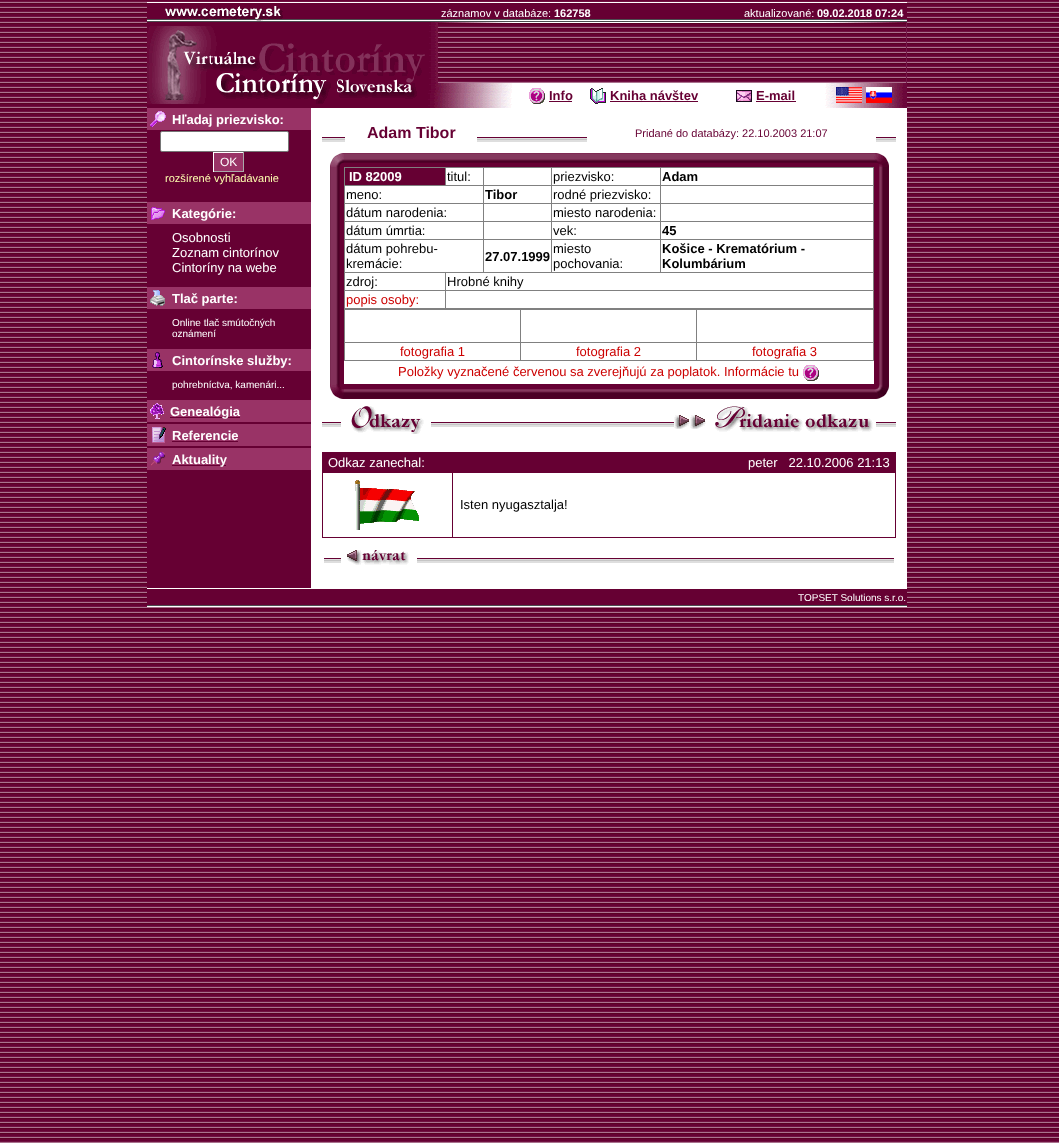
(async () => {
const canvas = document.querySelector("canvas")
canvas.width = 1059
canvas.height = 1143
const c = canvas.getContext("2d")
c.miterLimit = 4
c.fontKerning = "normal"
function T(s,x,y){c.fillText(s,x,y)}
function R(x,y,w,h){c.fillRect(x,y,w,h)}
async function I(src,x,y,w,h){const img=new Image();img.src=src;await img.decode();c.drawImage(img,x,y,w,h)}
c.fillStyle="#fff"
R(0,0,1059,1143)
await I("1.png",0,0,1059,1143)
R(147,2,760,1)
await I("2.png",147,3,138,16)
c.fillStyle="#603"
R(285,3,622,16)
c.font="11px Liberation Sans"
c.fillStyle="#fff"
T("záznamov v databáze:",441,17)
c.font="bold 11px Liberation Sans"
T("162758",554,17)
c.font="11px Liberation Sans"
T("aktualizované:",744,17)
c.font="bold 11px Liberation Sans"
T("09.02.2018 07:24",817,17)
await I("3.png",147,19,760,3)
await I("4.png",147,22,291,86)
await I("5.png",438,22,468,1)
await I("6.png",906,22,1,86)
await I("7.png",438,83,74,25)
R(512,83,289,25)
await I("8.png",529,88,16,16)
c.font="bold 13px Liberation Sans"
c.fillStyle="#603"
T("Info",549,100)
R(549,101,23,1)
await I("9.png",590,88,16,16)
T("Kniha návštev",610,100)
R(610,101,88,1)
await I("10.png",736,90,16,12)
T("E-mail",756,100)
R(756,101,40,1)
await I("11.png",801,83,105,25)
R(147,131,164,457)
c.fillStyle="#936"
R(147,108,164,22)
await I("12.png",150,111,16,16)
c.fillStyle="#fff"
T("Hľadaj priezvisko:",172,124)
c.beginPath()
c.roundRect(160.5,131.5,128,20,1.5)
c.fill()
c.strokeStyle="#767676"
c.stroke()
c.fillStyle="#936"
R(214,153,29,18)
c.fillStyle="#fff"
R(213,152,31,1)
c.fillStyle="#aaa"
R(243,152,1,20)
R(213,171,31,1)
c.fillStyle="#fff"
R(213,152,1,20)
c.font="12px Liberation Sans"
T("OK",220,166)
c.font="11px Liberation Sans"
c.fillStyle="#ffffb0"
T("rozšírené vyhľadávanie",165,182)
c.fillStyle="#936"
R(147,202,164,22)
await I("13.png",151,207,14,13)
c.font="bold 13px Liberation Sans"
c.fillStyle="#fff"
T("Kategórie:",172,218)
c.font="13px Liberation Sans"
T("Osobnosti",172,242)
T("Zoznam cintorínov",172,257)
T("Cintoríny na webe",172,272)
c.fillStyle="#936"
R(147,287,164,22)
await I("14.png",150,290,15,16)
c.font="bold 13px Liberation Sans"
c.fillStyle="#fff"
T("Tlač parte:",172,303)
c.font="10px Liberation Sans"
T("Online tlač smútočných",172,326)
T("oznámení",172,337)
c.fillStyle="#936"
R(147,349,164,22)
await I("15.png",152,352,11,16)
c.font="bold 13px Liberation Sans"
c.fillStyle="#fff"
T("Cintorínske služby:",172,365)
c.font="10px Liberation Sans"
T("pohrebníctva, kamenári...",172,388)
c.fillStyle="#936"
R(147,400,164,22)
await I("16.png",150,403,14,16)
c.fillStyle="#603"
R(170,417,70,1)
c.font="bold 13px Liberation Sans"
c.fillStyle="#fff"
T("Genealógia",170,416)
c.fillStyle="#936"
R(147,424,164,22)
await I("17.png",152,427,14,16)
c.fillStyle="#fff"
T("Referencie",172,440)
c.fillStyle="#603"
R(172,441,66,1)
c.fillStyle="#936"
R(147,448,164,22)
await I("18.png",151,451,15,15)
c.fillStyle="#603"
R(172,465,54,1)
c.fillStyle="#fff"
T("Aktuality",172,464)
R(311,108,596,480)
await I("19.png",322,137,23,5)
c.font="bold 16px Liberation Sans"
c.fillStyle="#603"
T("Adam Tibor",367,138)
await I("20.png",477,137,110,5)
c.font="11px Liberation Sans"
T("Pridané do databázy: 22.10.2003 21:07",635,137)
await I("21.png",876,137,20,5)
await I("22.png",330,153,14,14)
await I("23.png",344,153,530,14)
await I("24.png",874,153,15,14)
await I("25.png",330,167,14,217)
c.fillStyle="#808080"
R(344,167,530,1)
R(873,167,1,142)
R(344,308,530,2)
R(344,167,1,142)
c.fillStyle="#603"
R(345,168,100,17)
c.font="bold 13px Liberation Sans"
c.fillStyle="#fff"
T("ID 82009",349,181)
c.fillStyle="#808080"
R(660,185,214,1)
R(660,203,214,1)
R(660,221,214,1)
R(660,239,214,1)
R(445,272,429,1)
R(660,239,1,34)
R(551,239,110,1)
R(660,221,1,19)
R(551,221,110,1)
R(660,203,1,19)
R(551,203,110,1)
R(660,185,1,19)
R(551,185,110,1)
R(551,239,1,34)
R(483,239,69,1)
R(551,221,1,19)
R(483,221,69,1)
R(551,203,1,19)
R(483,203,69,1)
R(551,185,1,19)
R(483,185,69,1)
R(483,239,1,34)
R(344,239,140,1)
R(483,221,1,19)
R(344,221,140,1)
R(483,203,1,19)
R(344,203,140,1)
R(483,185,1,19)
R(344,185,140,1)
R(445,167,1,19)
c.font="13px Liberation Sans"
c.fillStyle="#000"
T("titul:",447,181)
c.fillStyle="#808080"
R(483,167,1,19)
R(551,167,1,19)
c.fillStyle="#000"
T("priezvisko:",553,181)
c.fillStyle="#808080"
R(660,167,1,19)
c.font="bold 13px Liberation Sans"
c.fillStyle="#000"
T("Adam",662,181)
c.font="13px Liberation Sans"
T("meno:",346,199)
c.font="bold 13px Liberation Sans"
T("Tibor",485,199)
c.font="13px Liberation Sans"
T("rodné priezvisko:",553,199)
T("dátum narodenia:",346,217)
T("miesto narodenia:",553,217)
T("dátum úmrtia:",346,235)
T("vek:",553,235)
c.font="bold 13px Liberation Sans"
T("45",662,235)
c.font="13px Liberation Sans"
T("dátum pohrebu-",346,253)
T("kremácie:",346,268)
c.font="bold 13px Liberation Sans"
T("27.07.1999",485,261)
c.font="13px Liberation Sans"
T("miesto",553,253)
T("pochovania:",553,268)
c.font="bold 13px Liberation Sans"
T("Košice - Krematórium -",662,253)
T("Kolumbárium",662,268)
c.fillStyle="#808080"
R(445,290,429,1)
R(445,290,1,19)
R(344,290,102,1)
R(445,272,1,19)
R(344,272,102,1)
c.font="13px Liberation Sans"
c.fillStyle="#000"
T("zdroj:",346,286)
T("Hrobné knihy",447,286)
c.fillStyle="#c00"
T("popis osoby:",346,304)
c.fillStyle="#808080"
R(873,309,1,52)
R(344,360,530,1)
R(344,309,1,52)
R(696,342,178,1)
R(696,342,1,19)
R(520,342,177,1)
R(520,342,1,19)
R(344,342,177,1)
R(520,309,1,34)
R(696,309,1,34)
c.fillStyle="#c00"
T("fotografia 1",400,356)
T("fotografia 2",576,356)
T("fotografia 3",752,356)
T("Položky vyznačené červenou sa zverejňujú za poplatok. Informácie tu",398,376)
await I("8.png",803,365,16,16)
await I("26.png",874,167,15,217)
await I("27.png",330,384,14,15)
await I("28.png",344,384,530,15)
await I("29.png",874,384,15,15)
await I("30.png",322,422,19,5)
await I("31.png",351,406,73,28)
await I("32.png",431,422,243,5)
await I("33.png",674,415,16,14)
await I("33.png",690,415,16,14)
await I("34.png",706,406,170,26)
await I("21.png",876,422,20,5)
c.fillStyle="#603"
R(322,452,574,1)
R(895,452,1,86)
R(322,537,574,1)
R(322,452,1,86)
R(323,453,572,19)
c.fillStyle="#fff"
T("Odkaz zanechal:",328,467)
T("peter   22.10.2006 21:13",748,467)
c.fillStyle="#603"
R(452,472,444,1)
R(452,472,1,66)
R(322,472,131,1)
await I("35.png",355,480,64,50)
c.fillStyle="#000"
T("Isten nyugasztalja!",460,509)
await I("36.png",324,558,17,5)
await I("37.png",347,550,62,15)
await I("38.png",417,558,477,5)
await I("39.png",147,588,760,19)
c.font="10px Liberation Sans"
c.fillStyle="#fff"
T("TOPSET Solutions s.r.o.",798,601)
})()
